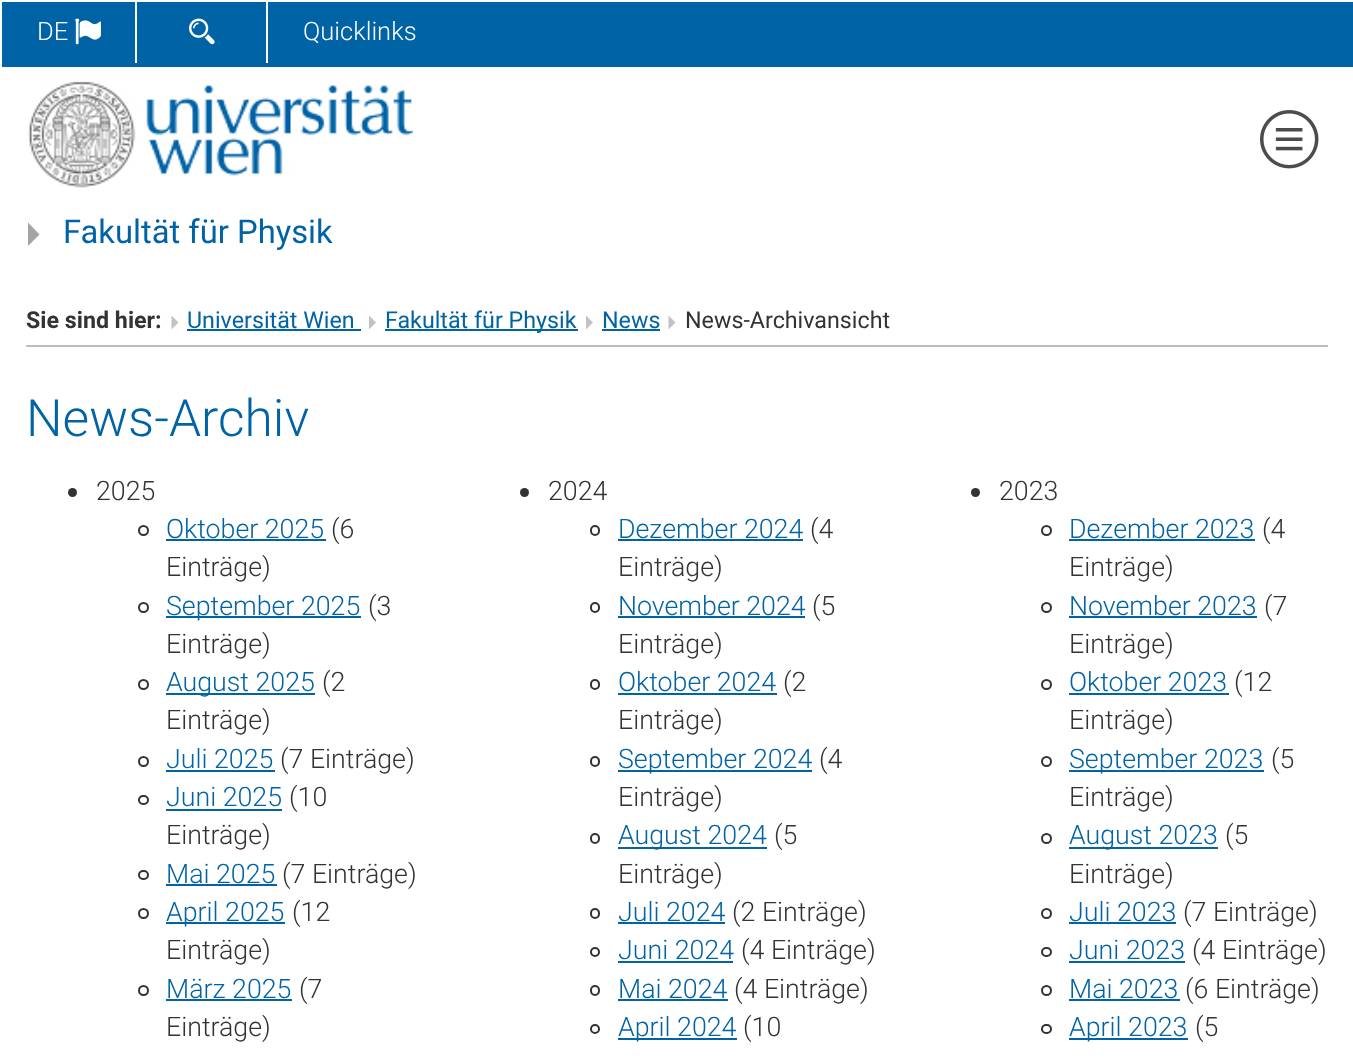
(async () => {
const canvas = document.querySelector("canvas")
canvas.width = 1353
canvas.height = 1058
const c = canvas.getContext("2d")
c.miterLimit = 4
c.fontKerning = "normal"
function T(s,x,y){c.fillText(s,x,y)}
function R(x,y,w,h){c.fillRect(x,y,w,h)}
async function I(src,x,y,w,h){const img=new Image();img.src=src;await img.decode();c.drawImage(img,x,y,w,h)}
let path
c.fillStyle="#fff"
R(0,0,1353,1058)
c.fillStyle="#0063a6"
R(2,2,1351,65)
c.fillStyle="#fff"
R(135,2,2,61)
c.font="300 25.5px Roboto"
T("DE",37,40)
await I("1.png",75,18,26,27)
R(266,2,2,61)
await I("2.png",189,18,26,27)
T("Quicklinks",303,40)
await I("3.png",28,81,385,107)
c.fillStyle="#a4a4a4"
path = new Path2D("M28 222.5v23.5l11.5-11.5z")
c.fill(path)
c.font="32.75px Roboto"
c.fillStyle="#0063a6"
T("Fakultät für Physik",63,243)
await I("4.png",1260,110,59,59)
c.font="bold 23.25px Roboto"
c.fillStyle="#333"
T("Sie sind hier:",26,328)
c.font="23.25px Roboto"
c.fillStyle="#0063a6"
T("Universität Wien",187,328)
c.fillStyle="#c2c2c2"
path = new Path2D("M171.5 315.5v14l7-7z")
c.fill(path)
c.fillStyle="#0063a6"
R(187,329,174,2)
R(385,329,193,2)
T("Fakultät für Physik",385,328)
c.fillStyle="#c2c2c2"
path = new Path2D("M369 315.5v14l7-7z")
c.fill(path)
c.fillStyle="#0063a6"
T("News",602,328)
c.fillStyle="#c2c2c2"
path = new Path2D("M586 315.5v14l7-7z")
c.fill(path)
c.fillStyle="#0063a6"
R(602,329,58,2)
c.fillStyle="#333"
T("News-Archivansicht",685,328)
c.fillStyle="#c2c2c2"
path = new Path2D("M668.5 315.5v14l7-7z")
c.fill(path)
c.fillStyle="#bdbdbd"
R(26,345,1302,2)
c.font="300 51.5px Roboto"
c.fillStyle="#0063a6"
T("News-Archiv",26,436)
c.fillStyle="#333"
c.beginPath()
c.arc(72.5,492.5,4.5,0,7)
c.fill()
c.font="300 26.75px Roboto"
T("2025",96,500)
c.beginPath()
c.arc(143.5,530.5,4.5,0,7)
c.strokeStyle="#333"
c.lineWidth=2
c.stroke()
c.fillStyle="#0063a6"
T("Oktober 2025",166,538)
R(166,539,160,2)
c.fillStyle="#333"
T("(6",331,538)
T("Einträge)",166,576)
c.beginPath()
c.arc(143.5,607.5,4.5,0,7)
c.stroke()
c.fillStyle="#0063a6"
R(166,616,195,2)
T("September 2025",166,615)
c.fillStyle="#333"
T("(3",368,615)
T("Einträge)",166,653)
c.beginPath()
c.arc(143.5,684.5,4.5,0,7)
c.stroke()
c.fillStyle="#0063a6"
R(166,693,149,2)
T("August 2025",166,691)
c.fillStyle="#333"
T("(2",322,691)
T("Einträge)",166,729)
c.beginPath()
c.arc(143.5,761.5,4.5,0,7)
c.stroke()
c.fillStyle="#0063a6"
T("Juli 2025",166,768)
R(166,770,109,2)
c.fillStyle="#333"
T("(7 Einträge)",280,768)
c.beginPath()
c.roundRect(139,796,9,8,4)
c.stroke()
c.fillStyle="#0063a6"
T("Juni 2025",166,806)
R(166,809,116,2)
c.fillStyle="#333"
T("(10",289,806)
T("Einträge)",166,844)
c.beginPath()
c.roundRect(139,871,9,8,4)
c.stroke()
c.fillStyle="#0063a6"
T("Mai 2025",166,883)
R(166,884,111,2)
c.fillStyle="#333"
T("(7 Einträge)",282,883)
c.beginPath()
c.arc(143.5,913.5,4.5,0,7)
c.stroke()
c.fillStyle="#0063a6"
R(166,922,119,2)
T("April 2025",166,921)
c.fillStyle="#333"
T("(12",292,921)
T("Einträge)",166,959)
c.beginPath()
c.arc(143.5,990.5,4.5,0,7)
c.stroke()
c.fillStyle="#0063a6"
T("März 2025",166,998)
R(166,999,126,2)
c.fillStyle="#333"
T("(7",299,998)
T("Einträge)",166,1036)
c.beginPath()
c.arc(524.5,492.5,4.5,0,7)
c.fill()
T("2024",548,500)
c.beginPath()
c.roundRect(591,526,8,9,4)
c.stroke()
c.fillStyle="#0063a6"
T("Dezember 2024",618,538)
R(618,539,185,2)
c.fillStyle="#333"
T("(4",810,538)
T("Einträge)",618,576)
c.beginPath()
c.roundRect(591,603,8,9,4)
c.stroke()
c.fillStyle="#0063a6"
T("November 2024",618,615)
R(618,616,187,2)
c.fillStyle="#333"
T("(5",812,615)
T("Einträge)",618,653)
c.beginPath()
c.roundRect(591,680,8,9,4)
c.stroke()
c.fillStyle="#0063a6"
T("Oktober 2024",618,691)
R(618,693,159,2)
c.fillStyle="#333"
T("(2",783,691)
T("Einträge)",618,729)
c.beginPath()
c.roundRect(591,757,8,9,4)
c.stroke()
c.fillStyle="#0063a6"
R(618,770,194,2)
T("September 2024",618,768)
c.fillStyle="#333"
T("(4",819,768)
T("Einträge)",618,806)
c.beginPath()
c.roundRect(591,834,8,9,4)
c.stroke()
c.fillStyle="#0063a6"
R(618,847,149,2)
T("August 2024",618,844)
c.fillStyle="#333"
T("(5",774,844)
T("Einträge)",618,883)
c.beginPath()
c.roundRect(591,909,8,9,4)
c.stroke()
c.fillStyle="#0063a6"
T("Juli 2024",618,921)
R(618,922,107,2)
c.fillStyle="#333"
T("(2 Einträge)",732,921)
c.beginPath()
c.arc(595,952,4,0,7)
c.stroke()
c.fillStyle="#0063a6"
T("Juni 2024",618,959)
R(618,961,115,2)
c.fillStyle="#333"
T("(4 Einträge)",741,959)
c.beginPath()
c.roundRect(591,986,8,9,4)
c.stroke()
c.fillStyle="#0063a6"
T("Mai 2024",618,998)
R(618,999,110,2)
c.fillStyle="#333"
T("(4 Einträge)",734,998)
c.beginPath()
c.arc(595,1029,4,0,7)
c.stroke()
c.fillStyle="#0063a6"
R(618,1038,119,2)
T("April 2024",618,1036)
c.fillStyle="#333"
T("(10",743,1036)
c.beginPath()
c.arc(975.5,492.5,4.5,0,7)
c.fill()
T("2023",999,500)
c.beginPath()
c.arc(1046.5,530.5,4.5,0,7)
c.stroke()
c.fillStyle="#0063a6"
T("Dezember 2023",1069,538)
R(1069,539,186,2)
c.fillStyle="#333"
T("(4",1262,538)
T("Einträge)",1069,576)
c.beginPath()
c.arc(1046.5,607.5,4.5,0,7)
c.stroke()
c.fillStyle="#0063a6"
T("November 2023",1069,615)
R(1069,616,188,2)
c.fillStyle="#333"
T("(7",1264,615)
T("Einträge)",1069,653)
c.beginPath()
c.arc(1046.5,684.5,4.5,0,7)
c.stroke()
c.fillStyle="#0063a6"
T("Oktober 2023",1069,691)
R(1069,693,160,2)
c.fillStyle="#333"
T("(12",1234,691)
T("Einträge)",1069,729)
c.beginPath()
c.arc(1046.5,761.5,4.5,0,7)
c.stroke()
c.fillStyle="#0063a6"
R(1069,770,195,2)
T("September 2023",1069,768)
c.fillStyle="#333"
T("(5",1271,768)
T("Einträge)",1069,806)
c.beginPath()
c.arc(1046.5,838.5,4.5,0,7)
c.stroke()
c.fillStyle="#0063a6"
R(1069,847,149,2)
T("August 2023",1069,844)
c.fillStyle="#333"
T("(5",1225,844)
T("Einträge)",1069,883)
c.beginPath()
c.arc(1046.5,913.5,4.5,0,7)
c.stroke()
c.fillStyle="#0063a6"
T("Juli 2023",1069,921)
R(1069,922,107,2)
c.fillStyle="#333"
T("(7 Einträge)",1183,921)
c.beginPath()
c.roundRect(1042,948,9,8,4)
c.stroke()
c.fillStyle="#0063a6"
T("Juni 2023",1069,959)
R(1069,961,116,2)
c.fillStyle="#333"
T("(4 Einträge)",1192,959)
c.beginPath()
c.arc(1046.5,990.5,4.5,0,7)
c.stroke()
c.fillStyle="#0063a6"
T("Mai 2023",1069,998)
R(1069,999,111,2)
c.fillStyle="#333"
T("(6 Einträge)",1185,998)
c.beginPath()
c.roundRect(1042,1025,9,8,4)
c.stroke()
c.fillStyle="#0063a6"
R(1069,1038,119,2)
T("April 2023",1069,1036)
c.fillStyle="#333"
T("(5",1195,1036)
})()
